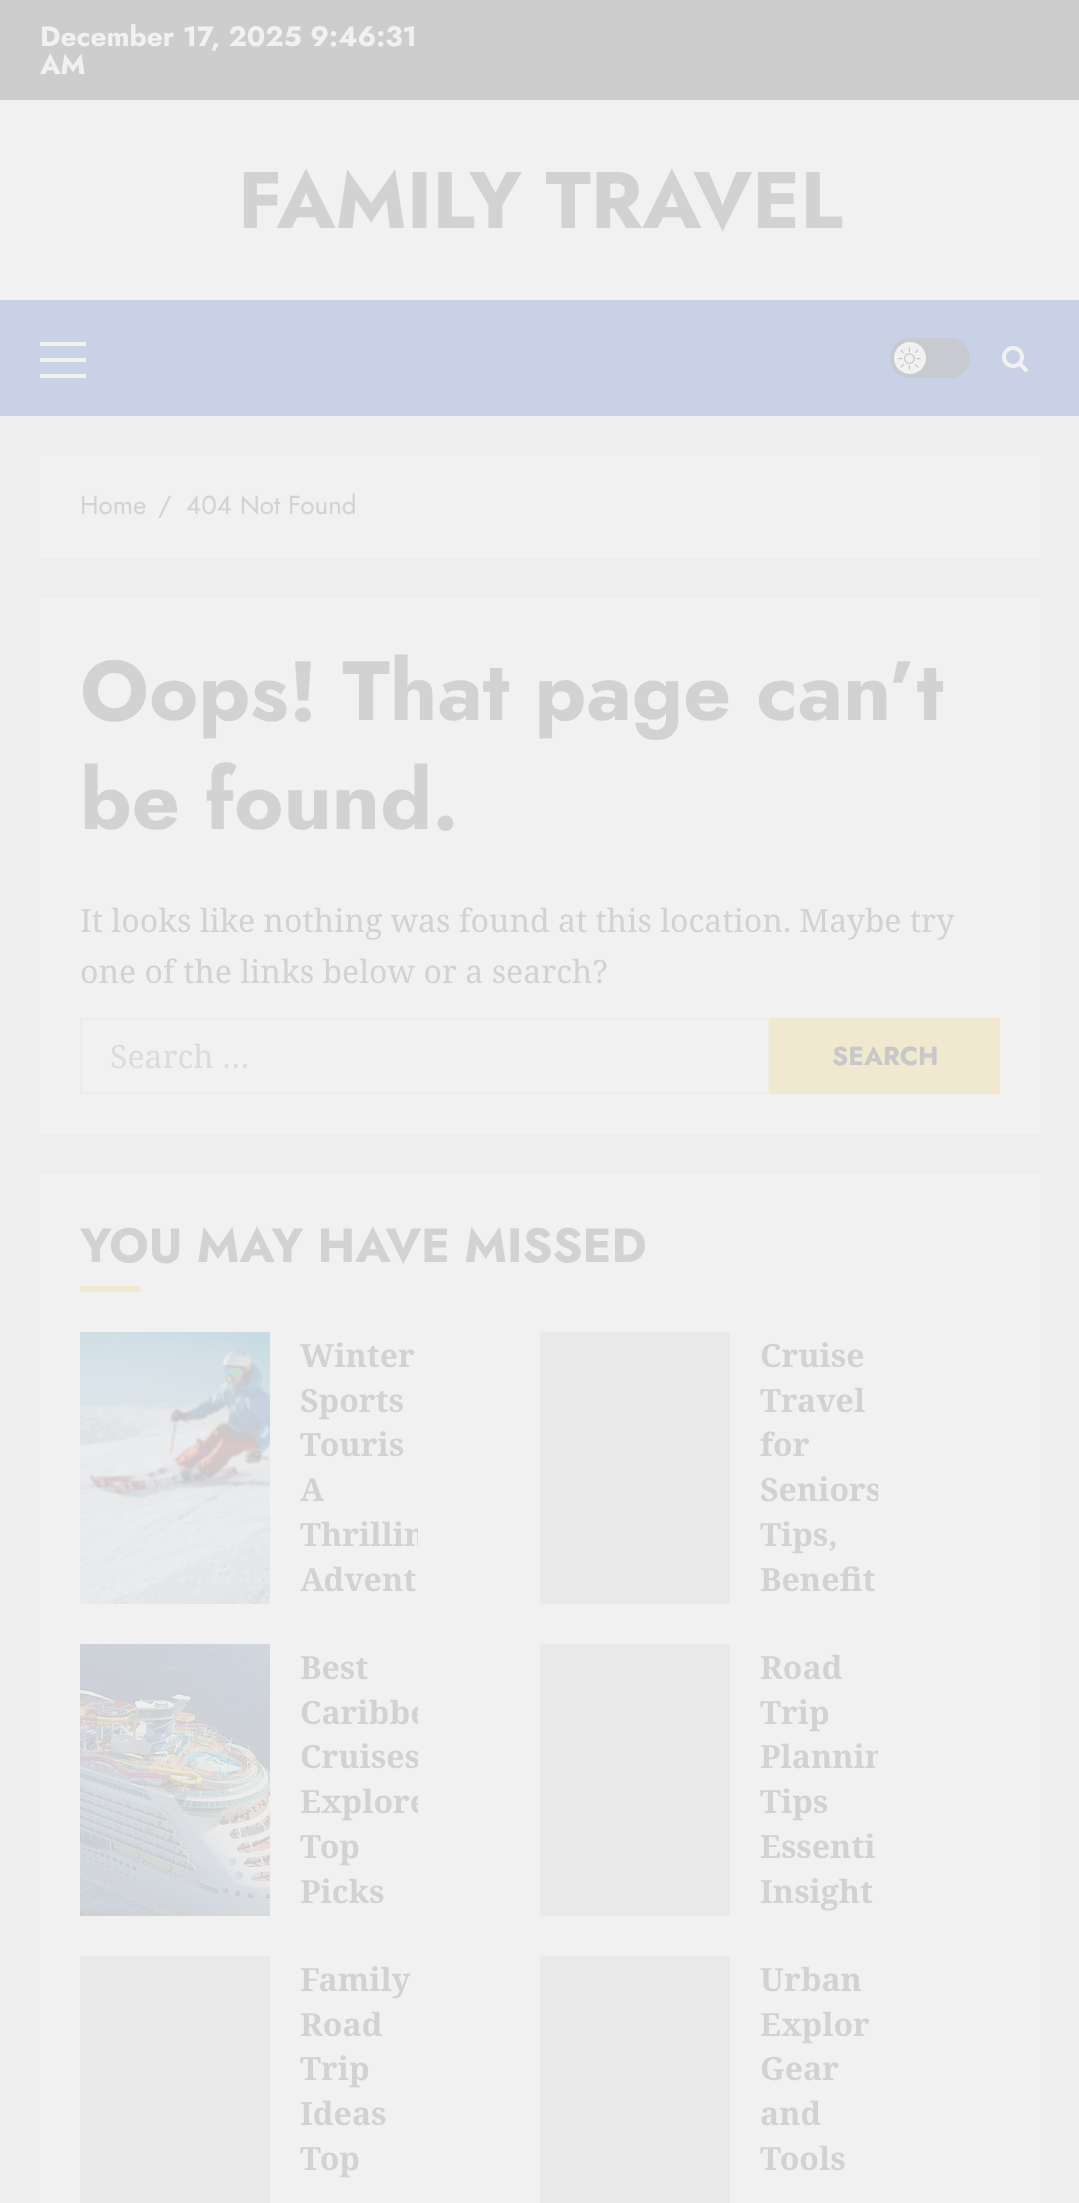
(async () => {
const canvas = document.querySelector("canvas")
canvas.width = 1079
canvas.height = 2203
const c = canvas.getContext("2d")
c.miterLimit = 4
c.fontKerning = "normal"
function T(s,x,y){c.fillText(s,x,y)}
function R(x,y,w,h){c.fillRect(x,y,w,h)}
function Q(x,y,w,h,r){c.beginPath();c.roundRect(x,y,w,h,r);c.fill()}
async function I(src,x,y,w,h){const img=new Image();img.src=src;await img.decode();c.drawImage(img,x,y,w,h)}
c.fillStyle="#eee"
R(0,0,1079,2203)
c.fillStyle="#cdcdcd"
R(0,0,1079,100)
c.font="bold 28px Jost"
c.fillStyle="#f1f1f1"
T("December 17, 2025 9:46:31",40,46)
T("AM",40,74)
R(0,100,1079,200)
c.font="bold 80px Jost"
c.fillStyle="#d2d2d2"
T("FAMILY TRAVEL",238,228)
c.fillStyle="#c8d1e5"
R(0,300,1079,116)
c.fillStyle="#f1f1f1"
R(40,358,46,4)
R(40,342,46,4)
R(40,374,46,4)
c.fillStyle="#c8cacf"
Q(890,338,80,40,20)
c.fillStyle="#f1f1f1"
c.beginPath()
c.arc(910,358,16,0,7)
c.fill()
await I("1.png",898,347,23,23)
await I("2.png",1002,346,26,26)
R(40,456,1000,102)
c.font="26px Jost"
c.fillStyle="#d2d2d2"
T("Home",80,514)
T("/",158,514)
T("404 Not Found",186,514)
c.fillStyle="#f1f1f1"
R(40,598,1000,536)
c.font="bold 84px Jost"
c.fillStyle="#d2d2d2"
T("Oops! That page can’t",80,720)
T("be found.",80,829)
c.font="32px Noto Serif"
T("It looks like nothing was found at this location. Maybe try",80,932)
T("one of the links below or a search?",80,983)
c.strokeStyle="#ebebeb"
c.lineWidth=2
c.strokeRect(81,1019,688,74)
c.fillStyle="#dbdbdb"
T("Search …",110,1068)
c.fillStyle="#f1e8d0"
R(770,1018,230,76)
c.font="bold 26px Jost"
c.fillStyle="#c8c8c8"
T("SEARCH",832,1065)
c.fillStyle="#f1f1f1"
R(40,1174,1000,1029)
c.font="bold 48px Jost"
c.fillStyle="#d2d2d2"
T("YOU MAY HAVE MISSED",80,1262)
c.fillStyle="#f1e8d0"
R(80,1286,60,6)
await I("3.png",80,1332,190,272)
c.font="bold 32px Noto Serif"
c.fillStyle="#d2d2d2"
T("Winter",300,1367)
T("Sports",300,1412)
T("Touris",300,1456)
T("A",300,1501)
c.save()
c.beginPath()
c.rect(270,1332,148,272)
c.clip()
T("Thrillin",300,1546)
c.restore()
T("Advent",300,1591)
c.fillStyle="#e9e9e9"
R(540,1332,190,272)
c.fillStyle="#d2d2d2"
T("Cruise",760,1367)
T("Travel",760,1412)
T("for",760,1456)
c.save()
c.beginPath()
c.rect(730,1332,148,272)
c.clip()
T("Seniors",760,1501)
c.restore()
T("Tips,",760,1546)
T("Benefit",760,1591)
await I("4.png",80,1644,190,272)
T("Best",300,1679)
c.save()
c.beginPath()
c.rect(270,1644,148,272)
c.clip()
T("Caribbe",300,1724)
T("Cruises",300,1768)
T("Explore",300,1813)
c.restore()
T("Top",300,1858)
T("Picks",300,1903)
c.fillStyle="#e9e9e9"
R(540,1644,190,272)
c.fillStyle="#d2d2d2"
T("Road",760,1679)
T("Trip",760,1724)
c.save()
c.beginPath()
c.rect(730,1644,148,272)
c.clip()
T("Plannin",760,1768)
c.restore()
T("Tips",760,1813)
T("Essenti",760,1858)
T("Insight",760,1903)
c.fillStyle="#e9e9e9"
R(80,1956,190,247)
c.fillStyle="#d2d2d2"
T("Family",300,1991)
T("Road",300,2036)
T("Trip",300,2080)
T("Ideas",300,2125)
T("Top",300,2170)
c.fillStyle="#e9e9e9"
R(540,1956,190,247)
c.fillStyle="#d2d2d2"
T("Urban",760,1991)
T("Explor",760,2036)
T("Gear",760,2080)
T("and",760,2125)
T("Tools",760,2170)
})()
